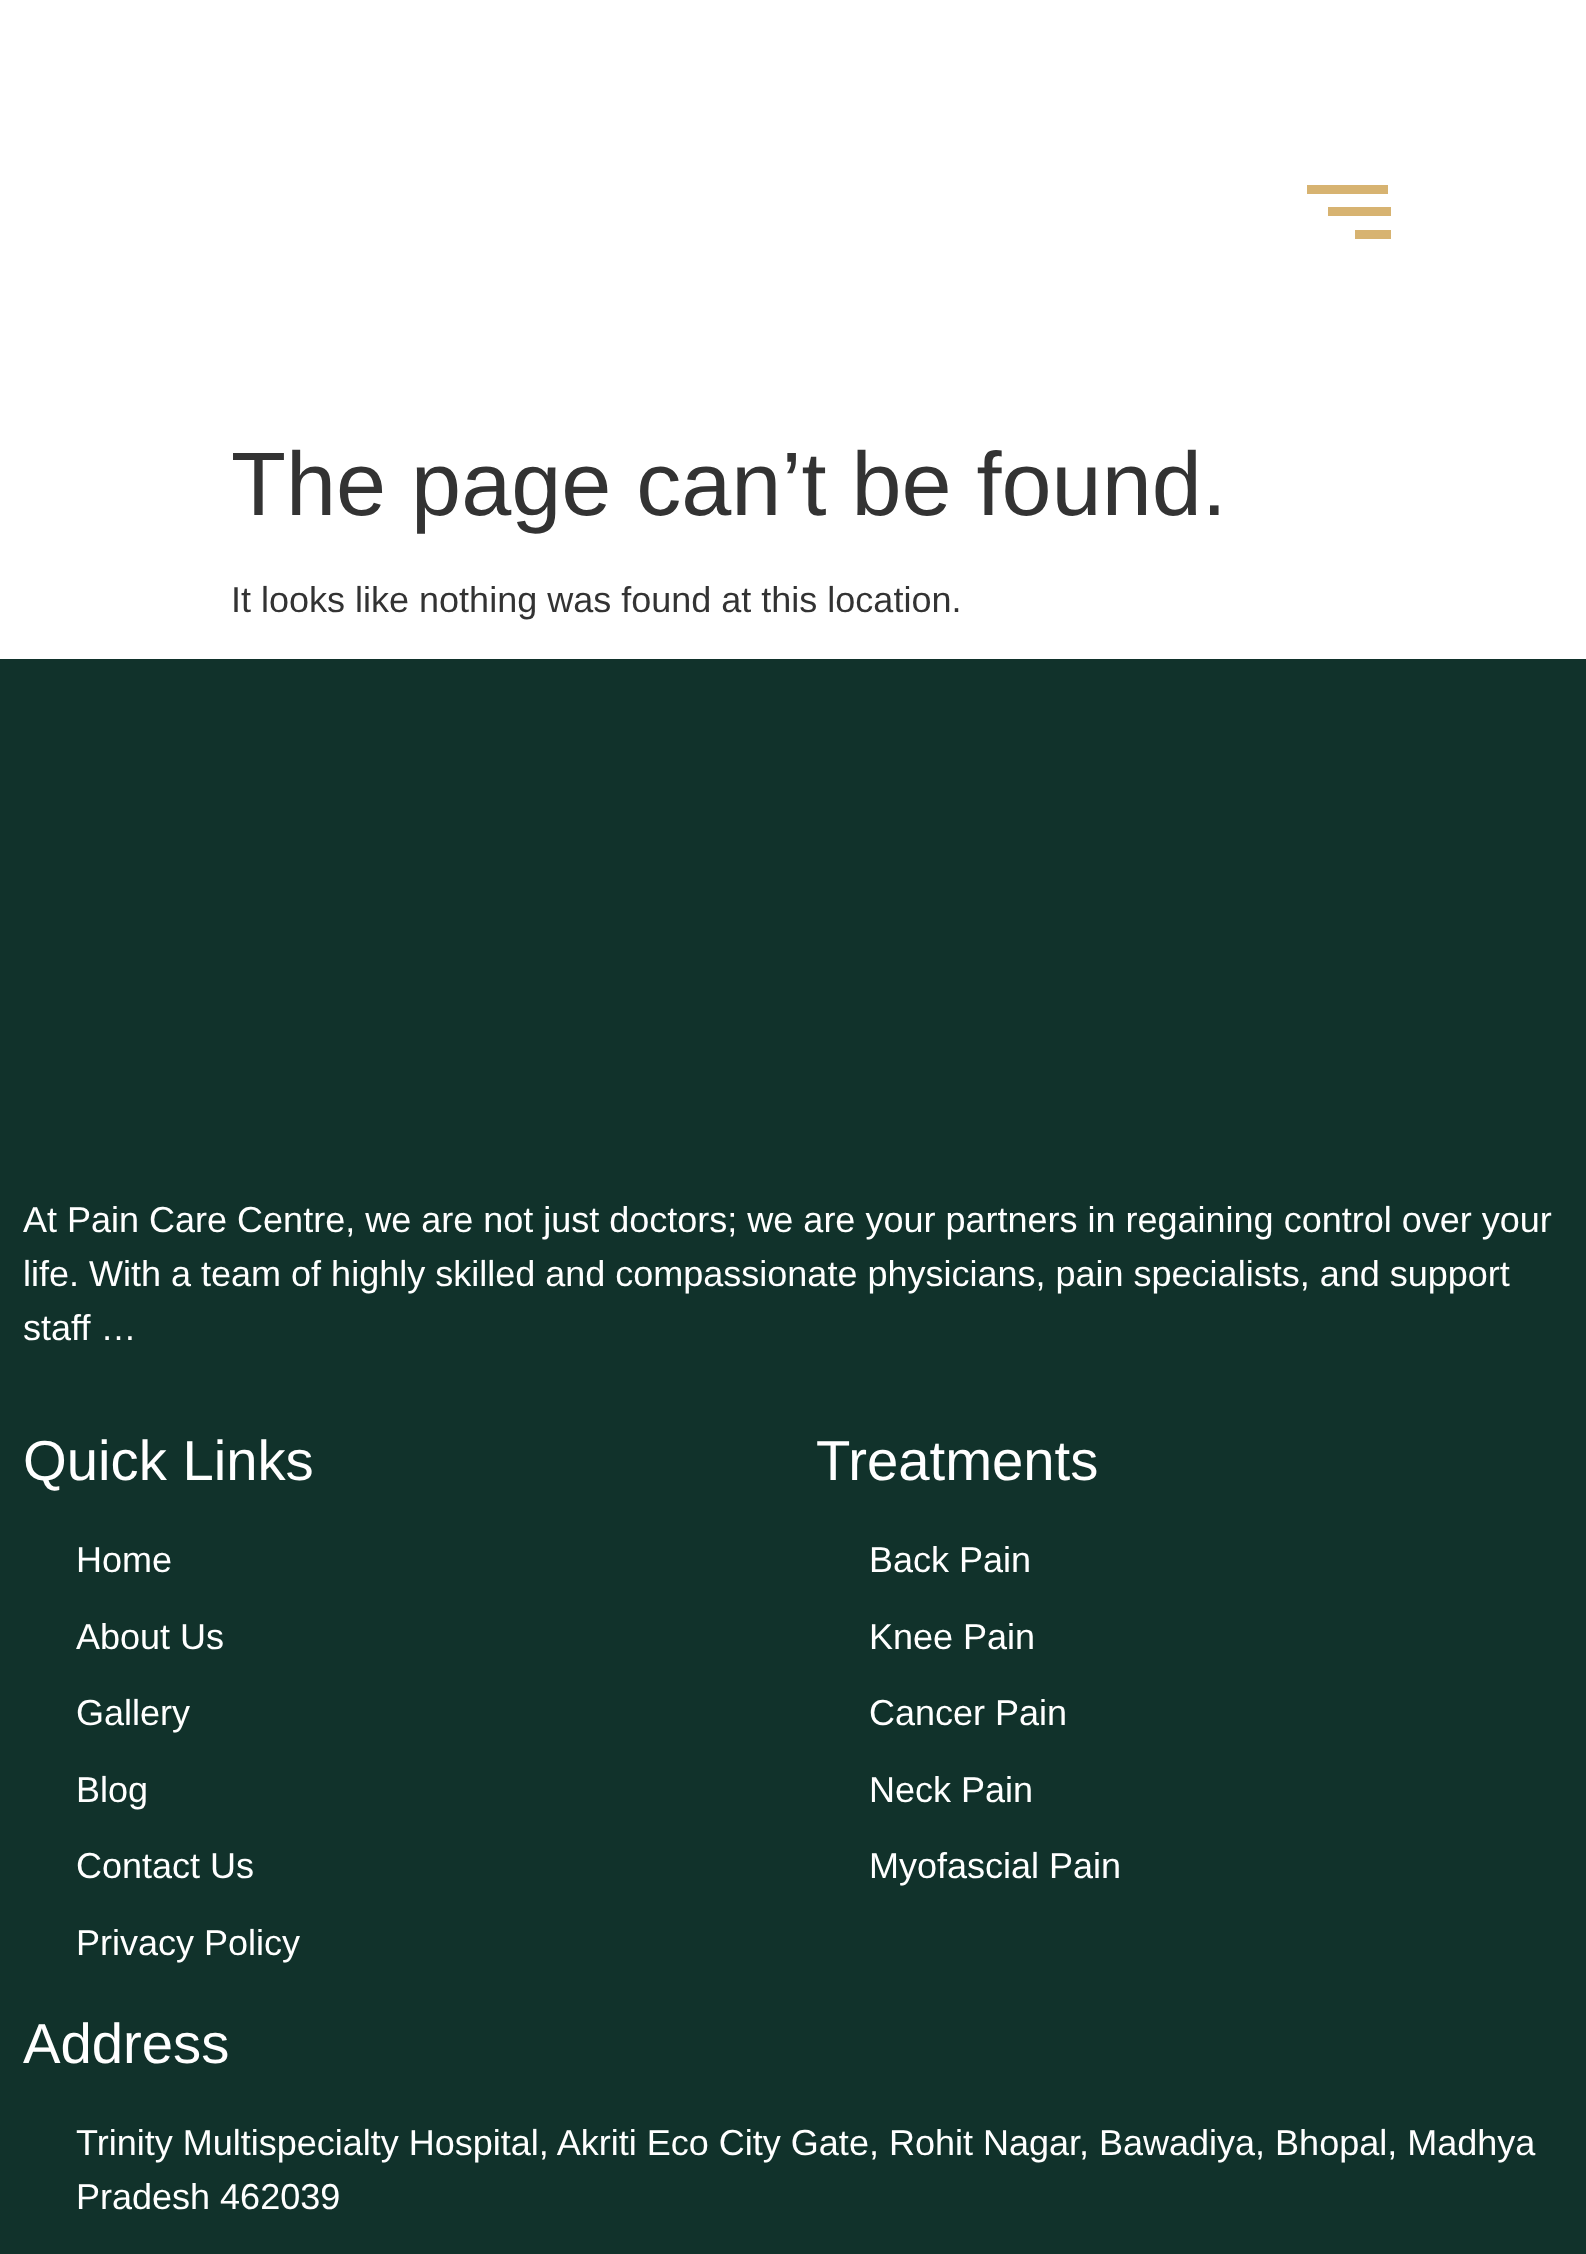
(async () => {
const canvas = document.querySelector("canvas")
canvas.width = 1586
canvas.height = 2254
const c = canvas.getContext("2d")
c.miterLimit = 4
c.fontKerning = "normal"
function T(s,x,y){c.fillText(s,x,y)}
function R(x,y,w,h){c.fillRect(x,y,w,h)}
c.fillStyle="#fff"
R(0,0,1586,2254)
c.fillStyle="#d7b371"
R(1307,185,81,9)
R(1328,207,63,9)
R(1355,230,36,9)
c.font="90px Liberation Sans"
c.fillStyle="#333"
T("The page can’t be found.",231,515)
c.font="36px Liberation Sans"
T("It looks like nothing was found at this location.",231,612)
c.fillStyle="#11322b"
R(0,659,1586,1595)
c.fillStyle="#fff"
T("At Pain Care Centre, we are not just doctors; we are your partners in regaining control over your",23,1232)
T("life. With a team of highly skilled and compassionate physicians, pain specialists, and support",23,1286)
T("staff …",23,1340)
c.font="56.25px Liberation Sans"
T("Quick Links",23,1480)
c.font="36px Liberation Sans"
T("Home",76,1572)
T("About Us",76,1649)
T("Gallery",76,1725)
T("Blog",76,1802)
T("Contact Us",76,1878)
T("Privacy Policy",76,1955)
c.font="56.25px Liberation Sans"
T("Treatments",816,1480)
c.font="36px Liberation Sans"
T("Back Pain",869,1572)
T("Knee Pain",869,1649)
T("Cancer Pain",869,1725)
T("Neck Pain",869,1802)
T("Myofascial Pain",869,1878)
c.font="56.25px Liberation Sans"
T("Address",23,2063)
c.font="36px Liberation Sans"
T("Trinity Multispecialty Hospital, Akriti Eco City Gate, Rohit Nagar, Bawadiya, Bhopal, Madhya",76,2155)
T("Pradesh 462039",76,2209)
})()
